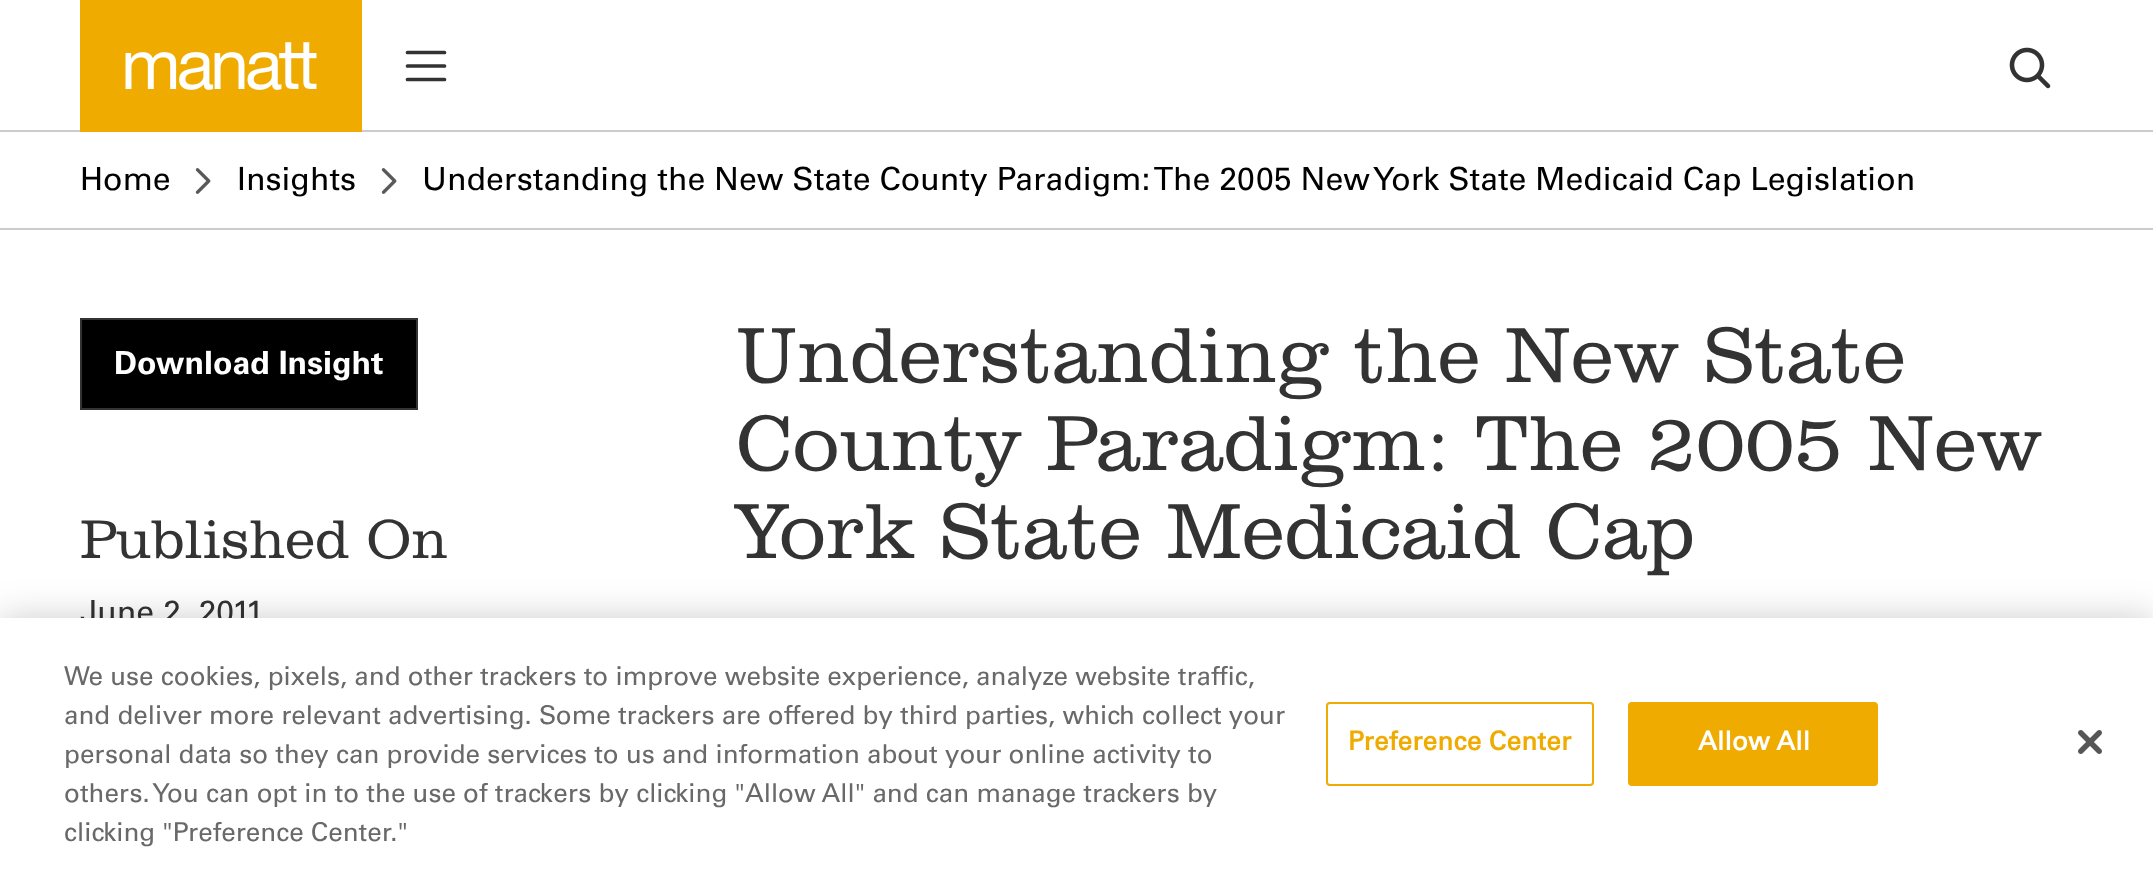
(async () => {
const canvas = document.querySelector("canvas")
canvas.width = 2153
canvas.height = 874
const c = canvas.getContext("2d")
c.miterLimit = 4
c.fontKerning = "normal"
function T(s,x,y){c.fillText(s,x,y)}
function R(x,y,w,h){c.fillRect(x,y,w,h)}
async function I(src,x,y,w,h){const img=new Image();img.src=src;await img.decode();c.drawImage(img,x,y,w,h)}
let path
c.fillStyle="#fff"
R(0,0,2153,874)
c.fillStyle="#ccc"
R(0,130,2153,2)
await I("1.png",80,0,282,132)
path = new Path2D("M407.5 79.5h37m-37-13.5h37m-37-13.5h37")
c.strokeStyle="#333"
c.lineWidth=3.7
c.lineCap="round"
c.lineJoin="round"
c.stroke(path)
await I("2.png",2009,47,42,42)
R(0,228,2153,2)
c.font="32px Univers"
c.fillStyle="#000"
T("Home",80,190)
await I("3.png",195,168,16,26)
T("Insights",237,190)
await I("3.png",381,168,16,26)
T("Understanding the New State County Paradigm: The 2005 New York State Medicaid Cap Legislation",422,190)
c.beginPath()
c.rect(81,319,336,90)
c.fill()
c.lineWidth=2
c.lineJoin="miter"
c.stroke()
c.font="bold 32px Univers"
c.fillStyle="#fff"
T("Download Insight",114,374)
c.font="300 56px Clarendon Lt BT"
c.fillStyle="#333"
T("Published On",80,558)
c.font="32px Univers"
T("June 2, 2011",80,623)
c.font="300 80px Clarendon Lt BT"
T("Understanding the New State",736,382)
T("County Paradigm: The 2005 New",736,470)
T("York State Medicaid Cap",736,558)
c.fillStyle="#00000033"
c.filter="blur(18px)"
c.beginPath()
c.rect(0,618,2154,256)
c.fill()
c.filter="none"
c.fillStyle="#fff"
R(0,618,2153,256)
c.font="26px Univers"
c.fillStyle="#696969"
T("We use cookies, pixels, and other trackers to improve website experience, analyze website traffic,",64,685)
T("and deliver more relevant advertising. Some trackers are offered by third parties, which collect your",64,724)
T("personal data so they can provide services to us and information about your online activity to",64,763)
T("others. You can opt in to the use of trackers by clicking \"Allow All\" and can manage trackers by",64,802)
T("clicking \"Preference Center.\"",64,841)
c.beginPath()
c.roundRect(1327,703,266,82,3)
c.strokeStyle="#f0ab00"
c.stroke()
c.letterSpacing="0.25px"
c.font="bold 26px 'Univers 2'"
c.fillStyle="#f0ab00"
T("Preference Center",1348,750)
c.beginPath()
c.roundRect(1629,703,248,82,3)
c.fill()
c.stroke()
c.fillStyle="#fff"
T("Allow All",1698,750)
await I("4.png",2078,730,24,24)
})()
